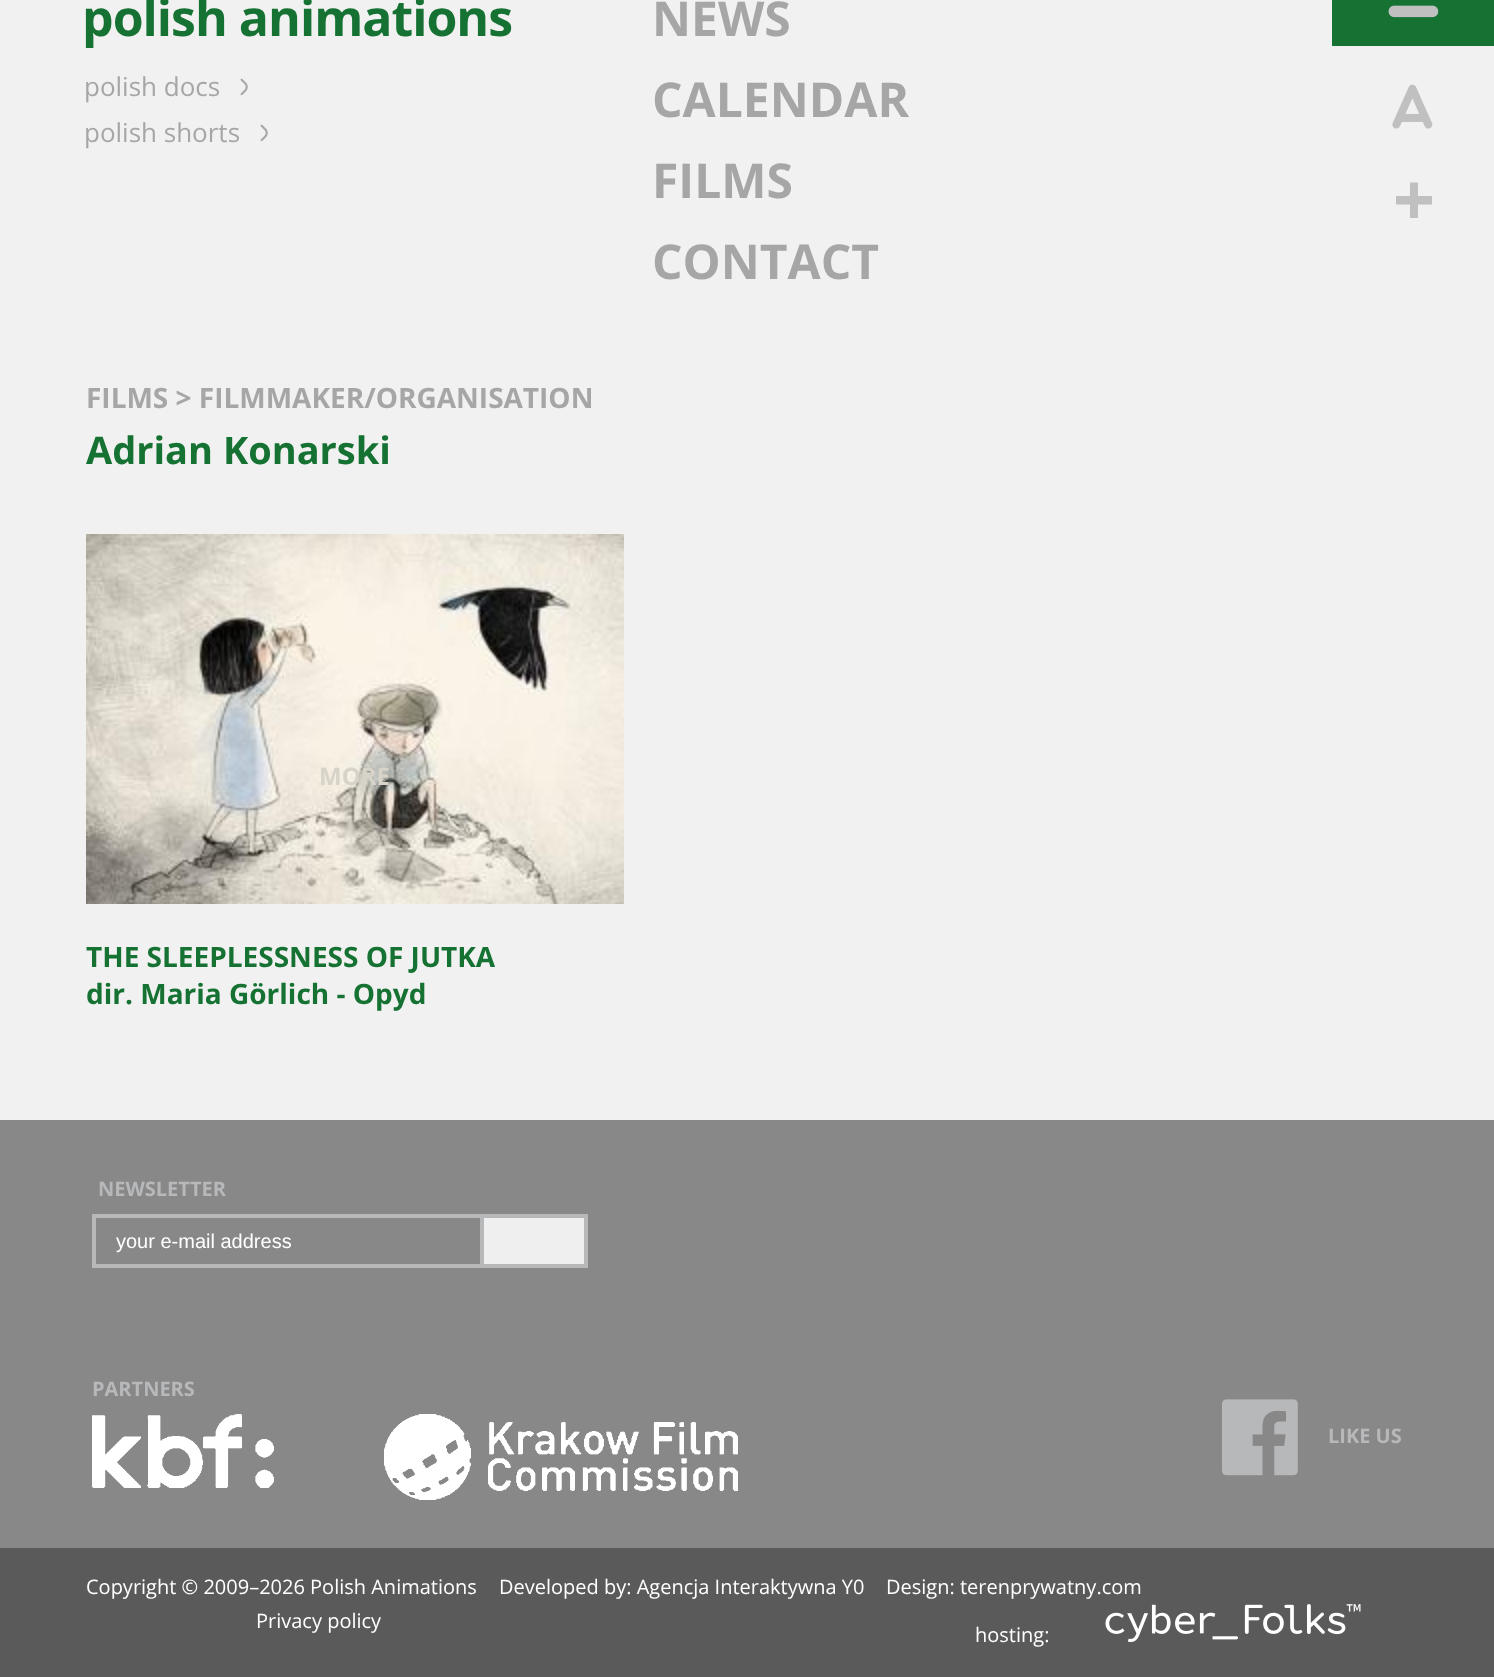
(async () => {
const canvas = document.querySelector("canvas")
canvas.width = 1494
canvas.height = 1677
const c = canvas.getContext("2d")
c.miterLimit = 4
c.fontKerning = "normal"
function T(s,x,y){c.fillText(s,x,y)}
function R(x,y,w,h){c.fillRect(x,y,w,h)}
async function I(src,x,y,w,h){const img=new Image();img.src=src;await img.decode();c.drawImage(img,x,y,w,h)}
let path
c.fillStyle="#f1f1f1"
R(0,0,1494,1677)
c.letterSpacing="-1px"
c.font="bold 50px Open Sans"
c.fillStyle="#157232"
T("polish animations",82,36)
c.letterSpacing="0px"
c.font="bold 48px Open Sans"
c.fillStyle="#a6a6a6"
T("NEWS",652,36)
T("CALENDAR",652,117)
T("FILMS",652,198)
T("CONTACT",652,279)
c.fillStyle="#157232"
R(1332,0,162,46)
await I("1.png",1388,5,51,13)
await I("2.png",1392,84,41,45)
c.fillStyle="#c1c0c1"
path = new Path2D("M1418 182.5v13.5h14v8.5h-14v13.5h-8v-13.5h-14v-8.5h14v-13.5z")
c.fill(path)
c.font="26px Open Sans"
c.fillStyle="#a6a6a6"
T("polish docs",84,96)
await I("3.png",240,78,8,18)
T("polish shorts",84,142)
await I("3.png",260,124,8,18)
c.font="bold 28px Open Sans"
T("FILMS > FILMMAKER/ORGANISATION",86,408)
c.font="bold 38px Open Sans"
c.fillStyle="#157232"
T("Adrian Konarski",86,464)
await I("4.png",86,534,538,370)
c.font="bold 24px Open Sans"
c.fillStyle="#d7d3c9"
T("MORE",319,785)
c.font="bold 28px Open Sans"
c.fillStyle="#157232"
T("THE SLEEPLESSNESS OF JUTKA",86,967)
T("dir. Maria Görlich - Opyd",86,1004)
c.fillStyle="#888"
R(0,1120,1494,428)
c.font="bold 20px Open Sans"
c.fillStyle="#b7b8ba"
T("NEWSLETTER",98,1196)
R(92,1214,388,4)
R(92,1264,388,4)
R(92,1214,4,54)
c.font="20px Liberation Sans"
c.fillStyle="#fff"
T("your e-mail address",116,1248)
c.fillStyle="#efefef"
c.beginPath()
c.rect(482,1216,104,50)
c.fill()
c.strokeStyle="#b7b8ba"
c.lineWidth=4
c.stroke()
c.font="bold 20px Open Sans"
c.fillStyle="#b7b8ba"
T("PARTNERS",92,1396)
await I("5.png",92,1414,182,74)
await I("6.png",384,1414,354,86)
await I("7.png",1222,1399,76,77)
T("LIKE US",1328,1443)
c.fillStyle="#5a5a5a"
R(0,1548,1494,129)
c.font="20px Open Sans"
c.fillStyle="#fff"
T("Copyright © 2009–2026 Polish Animations",86,1594)
T("Developed by: Agencja Interaktywna Y0",499,1594)
T("Design: terenprywatny.com",886,1594)
T("Privacy policy",256,1628)
T("hosting:",975,1642)
await I("8.png",1105,1604,256,38)
})()
